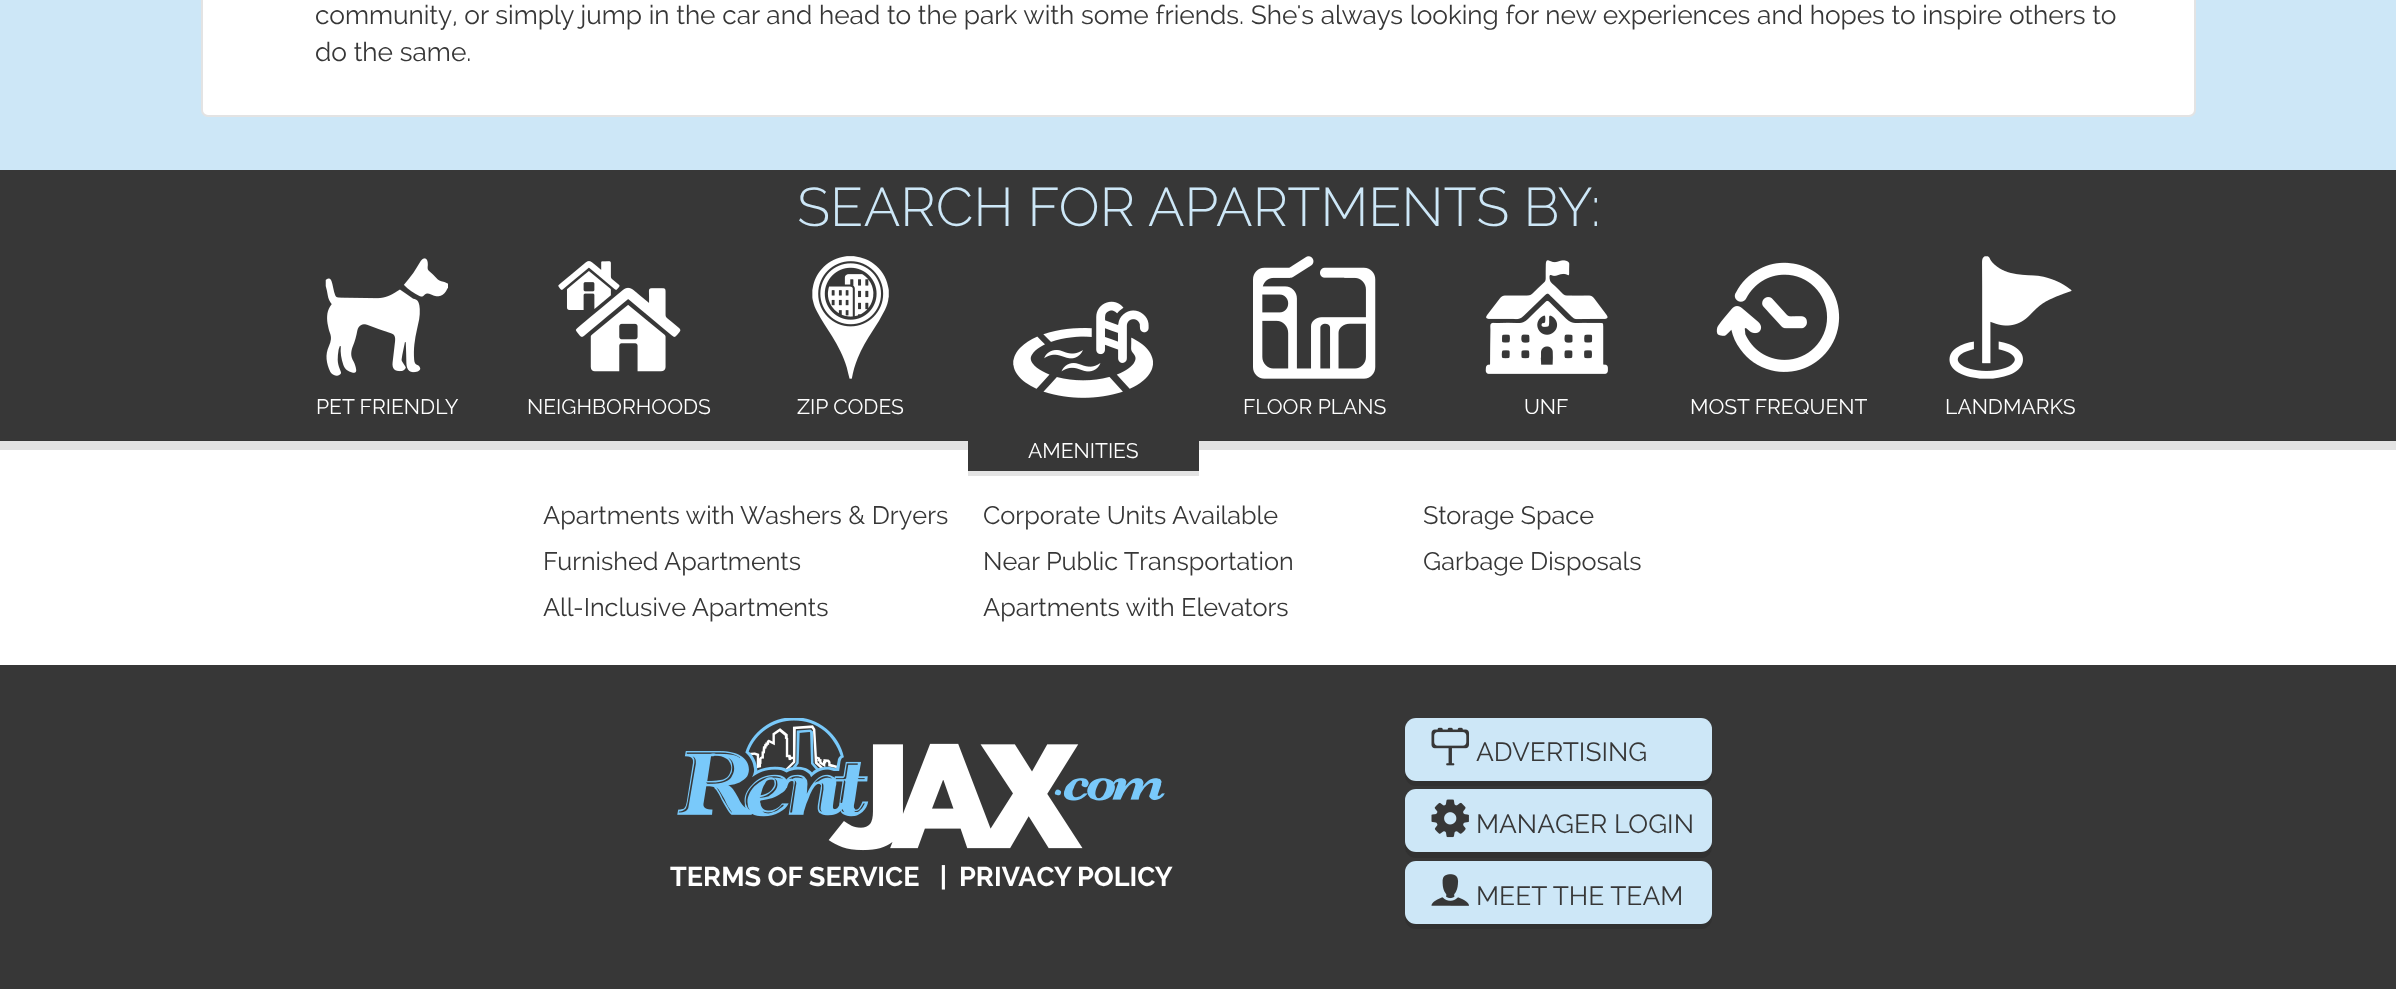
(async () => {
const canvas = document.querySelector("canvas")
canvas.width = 2396
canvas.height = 989
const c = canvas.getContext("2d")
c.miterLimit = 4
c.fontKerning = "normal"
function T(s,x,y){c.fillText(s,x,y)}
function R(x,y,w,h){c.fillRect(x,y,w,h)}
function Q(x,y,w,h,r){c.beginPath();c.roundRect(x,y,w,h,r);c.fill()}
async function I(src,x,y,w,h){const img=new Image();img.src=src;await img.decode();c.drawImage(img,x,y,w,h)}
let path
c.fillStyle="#fff"
R(0,0,2396,989)
c.fillStyle="#cde7f7"
R(0,0,2396,170)
c.fillStyle="#fff"
c.beginPath()
c.roundRect(202,-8,1993,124,6)
c.fill()
c.strokeStyle="#e3e3e3"
c.lineWidth=2
c.stroke()
c.font="26.25px Raleway"
c.fillStyle="#373737"
T("community, or simply jump in the car and head to the park with some friends. She's always looking for new experiences and hopes to inspire others to",315,24)
T("do the same.",315,61)
R(0,170,2396,271)
c.fillStyle="#e3e3e3"
R(0,441,2396,9)
c.font="300 54.2px Raleway"
c.fillStyle="#cde7f7"
T("SEARCH FOR APARTMENTS BY:",797,226)
await I("1.png",325,258,123,118)
c.font="21px Raleway"
c.fillStyle="#fff"
T("PET FRIENDLY",316,414)
await I("2.png",558,261,123,111)
T("NEIGHBORHOODS",527,414)
await I("3.png",812,256,77,123)
T("ZIP CODES",797,414)
await I("4.png",1253,256,123,123)
T("FLOOR PLANS",1243,414)
await I("5.png",1485,260,123,114)
T("UNF",1524,414)
await I("6.png",1716,262,124,110)
T("MOST FREQUENT",1690,414)
await I("7.png",1949,256,123,123)
T("LANDMARKS",1945,414)
c.fillStyle="#e3e3e3"
path = new Path2D("M968 471v5h231v-199v194z")
c.fill(path)
c.fillStyle="#373737"
R(968,441,231,30)
await I("8.png",1013,301,140,97)
c.fillStyle="#fff"
T("AMENITIES",1028,458)
c.font="25.25px Raleway"
c.fillStyle="#373737"
T("Apartments with Washers & Dryers",543,524)
T("Corporate Units Available",983,524)
T("Storage Space",1423,524)
T("Furnished Apartments",543,570)
T("Near Public Transportation",983,570)
T("Garbage Disposals",1423,570)
T("All-Inclusive Apartments",543,616)
T("Apartments with Elevators",983,616)
R(0,665,2396,324)
await I("10.png",749,725,334,126)
await I("9.png",677,718,488,99)
c.font="bold 27px Raleway"
c.fillStyle="#fff"
T("TERMS OF SERVICE",670,886)
T("|",940,886)
T("PRIVACY POLICY",959,886)
c.fillStyle="#313131"
path = new Path2D("M1405 732v43c0 6 5 11 11 11h285c6 0 11-5 11-11v-41v-3v39c0 6-5 10-11 10h-285c-6 0-11-4-11-10z")
c.fill(path)
c.fillStyle="#cde7f7"
Q(1405,718,307,63,11)
await I("11.png",1431,727,38,39)
c.font="26.25px Raleway"
c.fillStyle="#373737"
T("ADVERTISING",1476,761)
c.fillStyle="#313131"
path = new Path2D("M1405 804v43c0 6 5 11 11 11h285c6 0 11-5 11-11v-41v-3v39c0 6-5 10-11 10h-285c-6 0-11-4-11-10z")
c.fill(path)
c.fillStyle="#cde7f7"
Q(1405,789,307,63,11)
await I("12.png",1431,799,38,39)
c.fillStyle="#373737"
T("MANAGER LOGIN",1476,833)
c.fillStyle="#313131"
path = new Path2D("M1405 875v43c0 6 5 11 11 11h285c6 0 11-5 11-11v-41v-3v40c0 5-5 10-11 10h-285c-6 0-11-5-11-10z")
c.fill(path)
c.fillStyle="#cde7f7"
Q(1405,861,307,63,11)
await I("13.png",1431,874,38,32)
c.fillStyle="#373737"
T("MEET THE TEAM",1476,905)
})()
